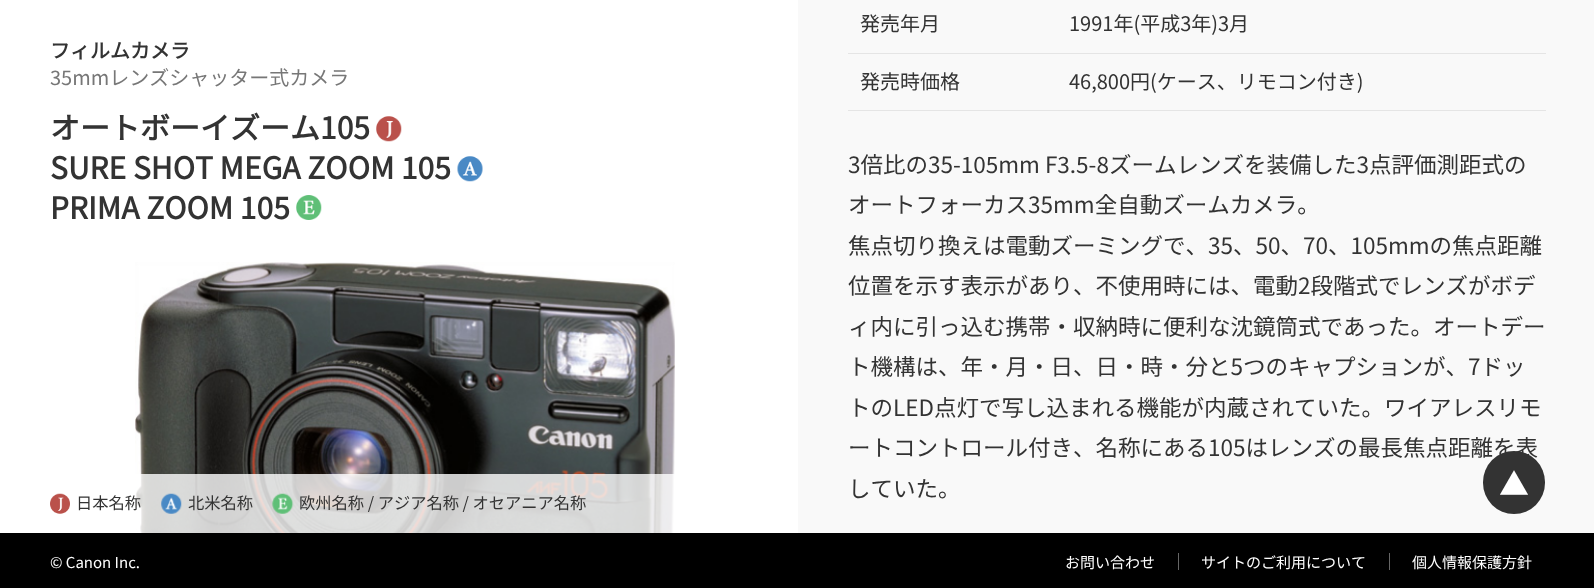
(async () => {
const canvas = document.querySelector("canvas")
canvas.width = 1594
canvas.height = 588
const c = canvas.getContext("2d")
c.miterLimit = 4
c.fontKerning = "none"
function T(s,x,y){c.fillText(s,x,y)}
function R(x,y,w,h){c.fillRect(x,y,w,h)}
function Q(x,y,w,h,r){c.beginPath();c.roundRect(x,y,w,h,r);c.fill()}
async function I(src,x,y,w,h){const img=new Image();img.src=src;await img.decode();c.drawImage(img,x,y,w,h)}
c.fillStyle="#fff"
R(0,0,1594,588)
c.font="bold 20px Noto Sans JP"
c.fillStyle="#333"
T("フィルムカメラ",50,58)
c.font="100 20px Noto Sans JP"
c.fillStyle="#777"
T("35mmレンズシャッター式カメラ",50,85)
c.font="bold 30px Noto Sans JP"
c.fillStyle="#333"
T("オートボーイズーム105",50,139)
await I("1.png",376,116,26,26)
T("SURE SHOT MEGA ZOOM 105",50,179)
await I("2.png",457,156,26,26)
T("PRIMA ZOOM 105",50,219)
await I("3.png",296,195,26,25)
await I("4.png",135,262,540,271)
c.fillStyle="#ffffffcc"
R(135,474,540,59)
await I("5.png",50,493,20,21)
c.font="100 16.25px Noto Sans JP"
c.fillStyle="#333"
T("日本名称",76,509)
await I("6.png",161,493,21,21)
T("北米名称",188,509)
await I("7.png",272,493,22,21)
T("欧州名称 / アジア名称 / オセアニア名称",299,509)
c.fillStyle="#f9f9f9"
R(798,0,796,533)
c.font="100 20px Noto Sans JP"
c.fillStyle="#333"
T("発売年月",860,31)
c.fillStyle="#e5e5e5"
R(848,53,698,1)
c.fillStyle="#333"
T("1991年(平成3年)3月",1069,31)
T("発売時価格",860,89)
c.fillStyle="#e5e5e5"
R(848,110,698,1)
c.fillStyle="#333"
T("46,800円(ケース、リモコン付き)",1069,89)
c.font="100 22.5px Noto Sans JP"
T("3倍比の35-105mm F3.5-8ズームレンズを装備した3点評価測距式の",848,173)
T("オートフォーカス35mm全自動ズームカメラ。",848,213)
T("焦点切り換えは電動ズーミングで、35、50、70、105mmの焦点距離",848,254)
T("位置を示す表示があり、不使用時には、電動2段階式でレンズがボデ",848,294)
T("ィ内に引っ込む携帯・収納時に便利な沈鏡筒式であった。オートデー",848,335)
T("ト機構は、年・月・日、日・時・分と5つのキャプションが、7ドッ",848,375)
T("トのLED点灯で写し込まれる機能が内蔵されていた。ワイアレスリモ",848,416)
T("ートコントロール付き、名称にある105はレンズの最長焦点距離を表",848,456)
T("していた。",848,497)
c.fillStyle="#000"
R(0,533,1594,55)
c.fillStyle="#333"
Q(1483,451,62,63,31)
c.font="100 30px Noto Sans JP"
c.fillStyle="#fff"
T("▲",1499,495)
c.font="100 15px Noto Sans JP"
T("© Canon Inc.",50,568)
T("お問い合わせ",1065,568)
c.fillStyle="#666"
R(1178,553,1,17)
c.fillStyle="#fff"
T("サイトのご利用について",1201,568)
c.fillStyle="#666"
R(1389,553,1,17)
c.fillStyle="#fff"
T("個人情報保護方針",1412,568)
})()
